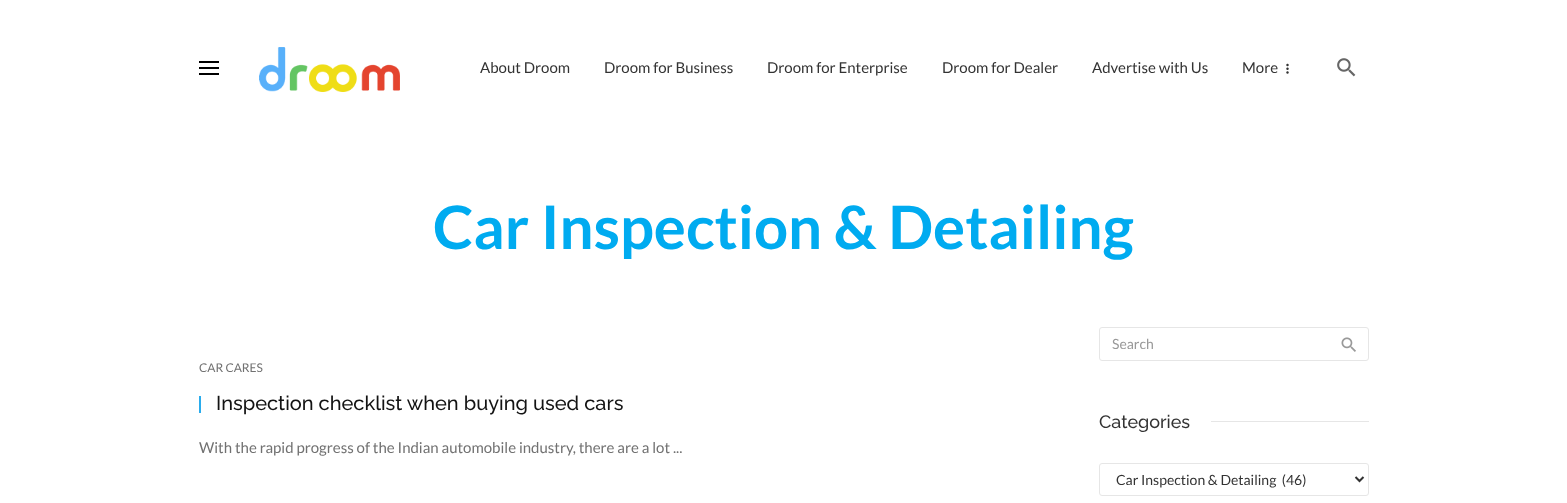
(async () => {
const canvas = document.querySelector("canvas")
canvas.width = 1567
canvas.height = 503
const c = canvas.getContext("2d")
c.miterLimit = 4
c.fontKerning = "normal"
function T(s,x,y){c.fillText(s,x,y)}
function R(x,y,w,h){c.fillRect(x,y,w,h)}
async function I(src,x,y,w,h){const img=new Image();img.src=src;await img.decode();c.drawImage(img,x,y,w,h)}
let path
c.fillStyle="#fff"
R(0,0,1567,503)
c.fillStyle="#000"
R(199,67,20,2)
R(199,61,20,2)
R(199,73,20,2)
await I("1.png",259,47,141,45)
c.font="15px Lato"
c.fillStyle="#333"
T("About Droom",480,73)
T("Droom for Business",604,73)
T("Droom for Enterprise",767,73)
T("Droom for Dealer",942,73)
T("Advertise with Us",1092,73)
T("More",1242,73)
await I("2.png",1286,63,3,11)
await I("3.png",1337,58,19,19)
c.font="bold 60px Lato"
c.fillStyle="#00abf0"
T("Car Inspection & Detailing",433,249)
c.font="12px Lato"
c.fillStyle="#717171"
T("CAR CARES",199,372)
c.fillStyle="#2aaced"
R(199,396,2,17)
c.font="500 20px Raleway"
c.fillStyle="#131313"
T("Inspection checklist when buying used cars",216,410)
c.font="15px Lato"
c.fillStyle="#717171"
T("With the rapid progress of the Indian automobile industry, there are a lot ...",199,453)
c.beginPath()
c.roundRect(1099.5,327.5,269,33,2.5)
c.strokeStyle="#e6e6e6"
c.stroke()
c.font="14px Lato"
c.fillStyle="#999"
T("Search",1112,349)
await I("4.png",1341,337,15,15)
c.font="500 18px Raleway"
c.fillStyle="#333"
T("Categories",1099,428)
c.fillStyle="#e6e6e6"
R(1211,421,158,1)
c.beginPath()
c.roundRect(1099.5,463.5,269,32,2.5)
c.stroke()
path = new Path2D("M1355.5 477l4 4l4-4")
c.strokeStyle="#333"
c.lineWidth=2
c.stroke(path)
c.font="14px Lato"
c.fillStyle="#333"
T("Car Inspection & Detailing  (46)",1116,485)
})()
